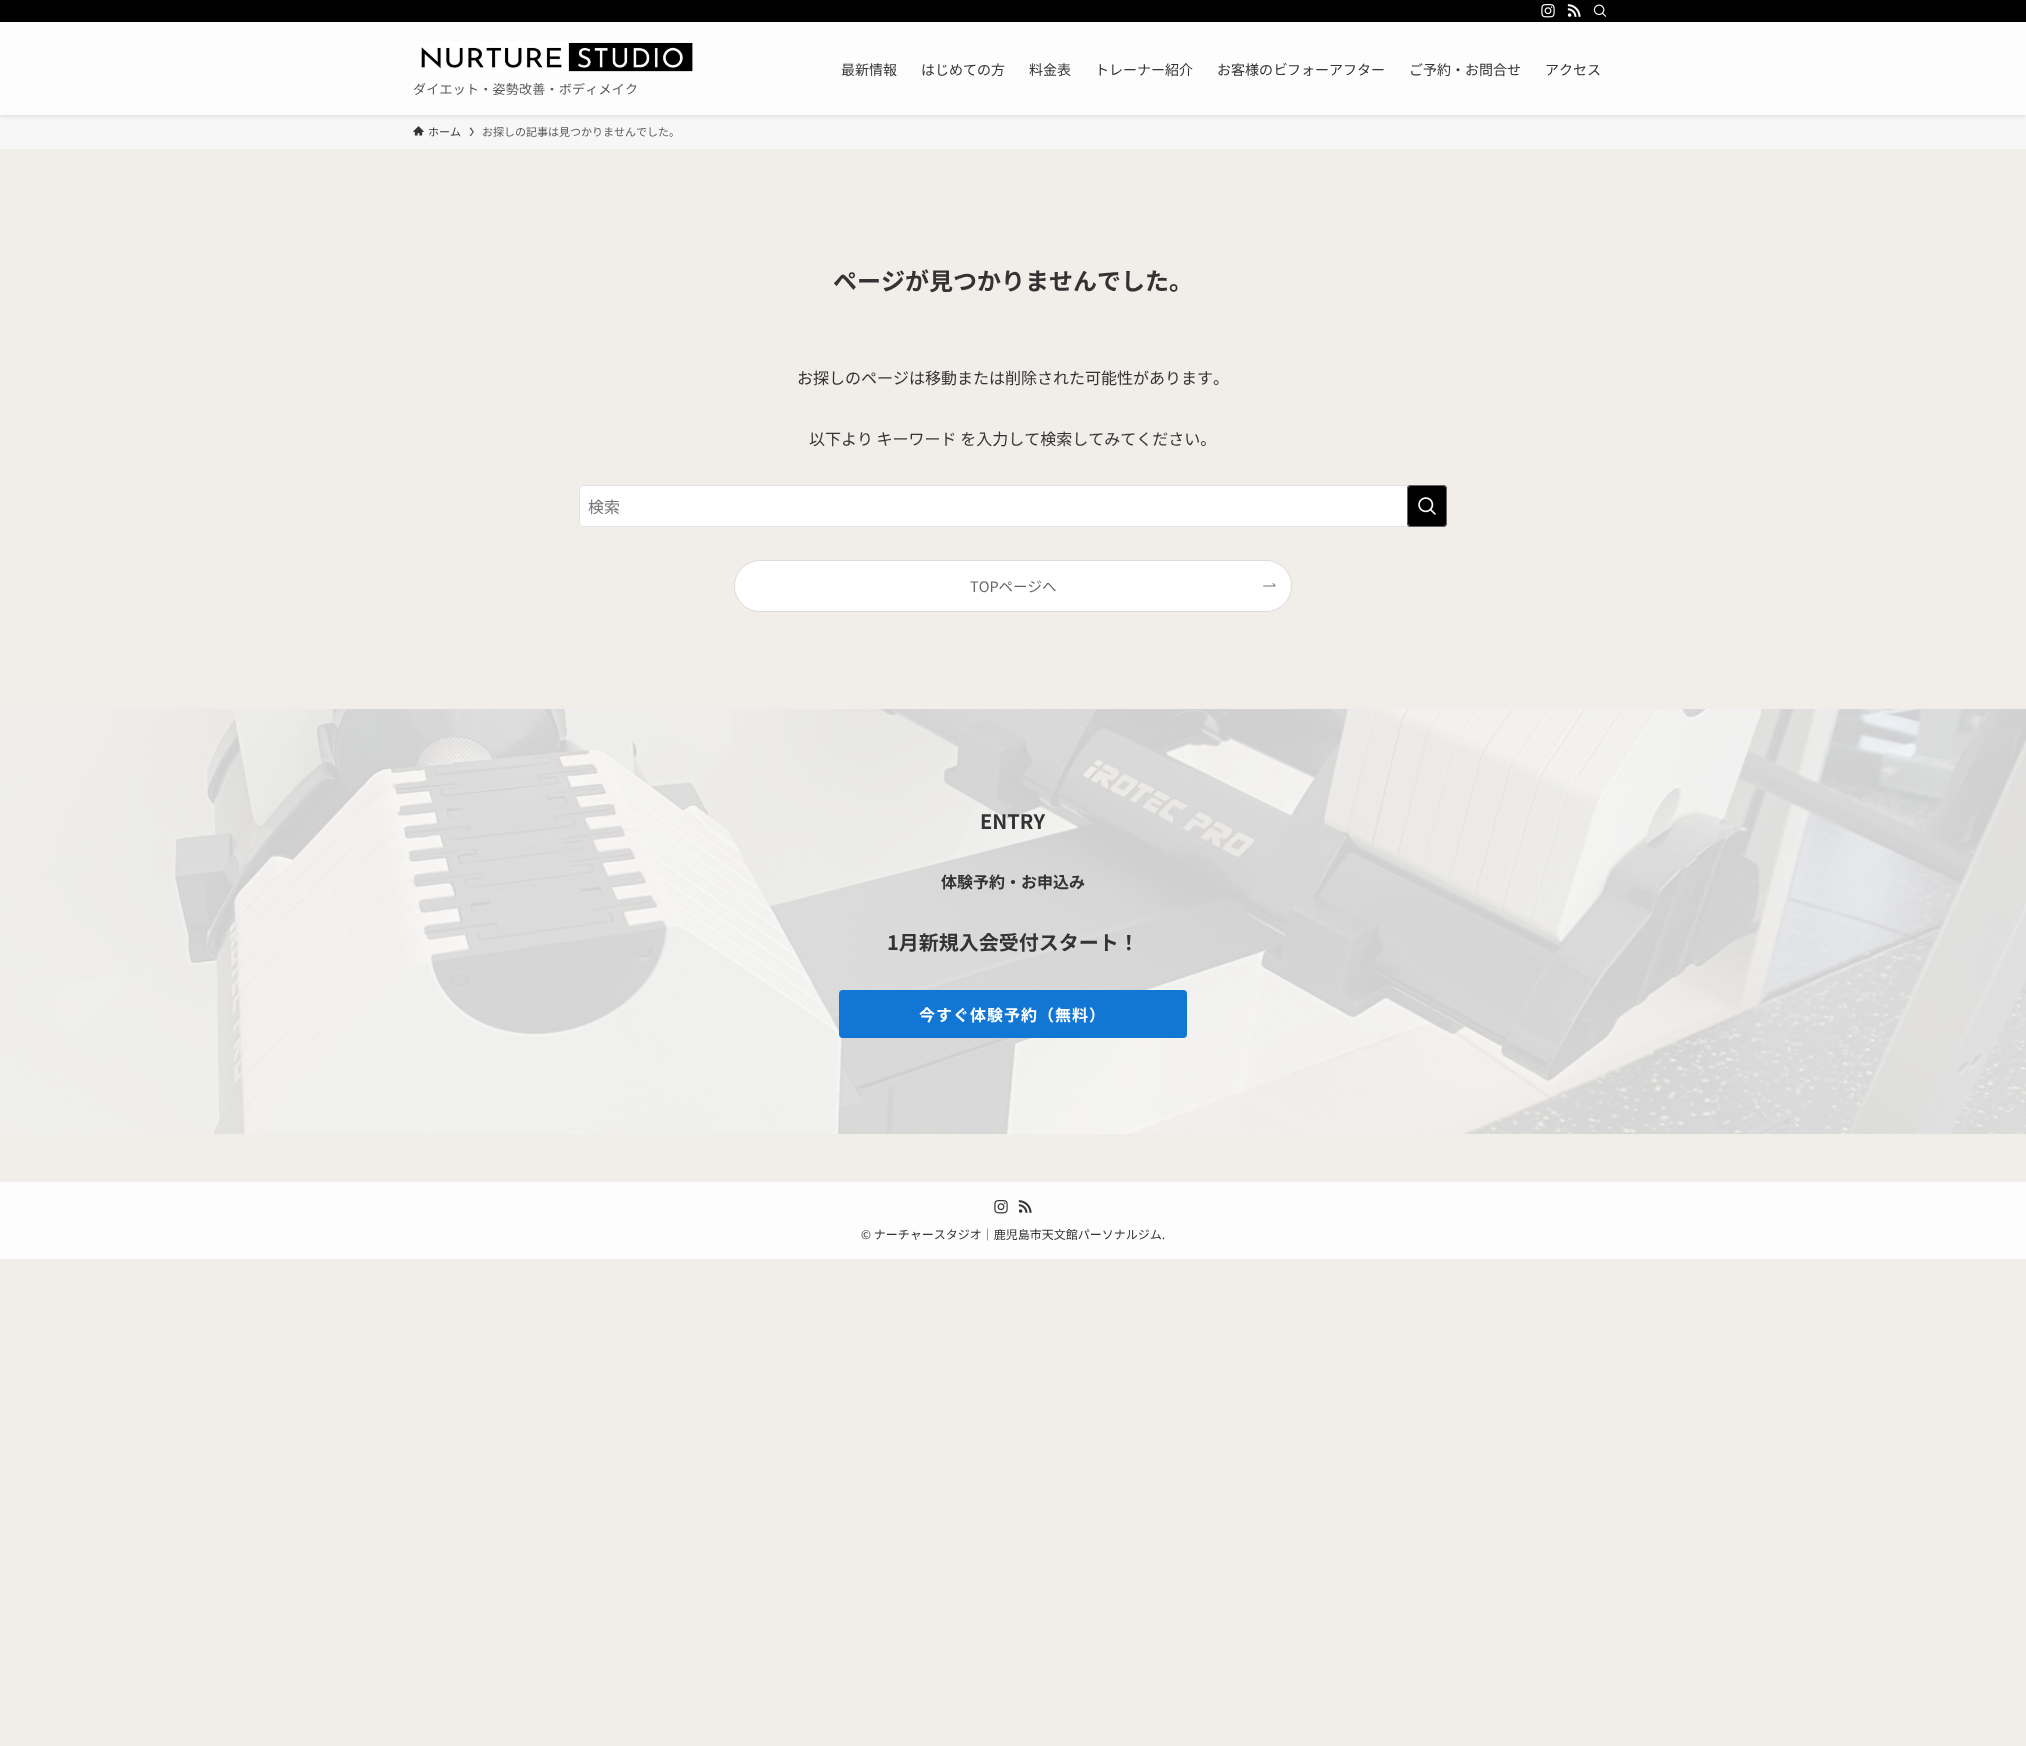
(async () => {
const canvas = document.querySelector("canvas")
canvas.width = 2026
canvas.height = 1746
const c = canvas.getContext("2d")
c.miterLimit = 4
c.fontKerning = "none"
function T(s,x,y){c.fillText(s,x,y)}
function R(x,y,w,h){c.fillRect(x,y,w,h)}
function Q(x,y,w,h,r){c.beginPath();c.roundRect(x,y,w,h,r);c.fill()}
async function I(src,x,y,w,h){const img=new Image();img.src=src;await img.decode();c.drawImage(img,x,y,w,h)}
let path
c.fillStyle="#f1eee9"
R(0,0,2026,1746)
c.fillStyle="#f7f7f7"
R(0,115,2026,34)
c.fillStyle="#0000001f"
c.filter="blur(2px)"
c.beginPath()
c.rect(0,1,2026,115)
c.fill()
c.filter="none"
c.fillStyle="#fdfdfd"
R(0,22,2026,93)
c.fillStyle="#000"
R(0,0,2026,22)
await I("1.png",1541,4,14,14)
await I("2.png",1567,4,14,13)
await I("3.png",1593,4,14,13)
c.font="14px Noto Sans JP"
c.fillStyle="#333"
T("最新情報",841,75)
T("はじめての方",921,75)
T("料金表",1029,75)
T("トレーナー紹介",1095,75)
T("お客様のビフォーアフター",1217,75)
T("ご予約・お問合せ",1409,75)
T("アクセス",1545,75)
await I("4.png",421,42,272,30)
c.letterSpacing="0.25px"
c.font="13px Noto Sans JP"
c.fillStyle="#5a5a5a"
T("ダイエット・姿勢改善・ボディメイク",413,94)
await I("5.png",413,126,11,10)
c.letterSpacing="0px"
c.font="11px Noto Sans JP"
c.fillStyle="#333"
T("ホーム",428,136)
c.fillStyle="#5a5a5a"
path = new Path2D("M471 127.5l-1.5 .5l3 4l-3 4h1.5l3-4z")
c.fill(path)
T("お探しの記事は見つかりませんでした。",482,136)
c.font="bold 24px Noto Sans JP"
c.fillStyle="#333"
T("ページが見つかりませんでした。",833,290)
c.font="16px Noto Sans JP"
T("お探しのページは移動または削除された可能性があります。",797,384)
T("以下より キーワード を入力して検索してみてください。",809,445)
c.fillStyle="#fff"
Q(579,485,868,42,4)
c.beginPath()
c.roundRect(579.5,485.5,867,41,3.5)
c.strokeStyle="#c7c7c780"
c.stroke()
c.fillStyle="#757575"
T("検索",588,513)
c.fillStyle="#000"
Q(1407,485,40,42,4)
c.beginPath()
c.roundRect(1407.5,485.5,39,41,3.5)
c.stroke()
await I("6.png",1418,497,18,18)
c.beginPath()
c.roundRect(734.5,560.5,557,51,25.5)
c.strokeStyle="#dcdcdc"
c.stroke()
c.fillStyle="#fff"
Q(735,561,556,50,25)
c.font="14.5px Noto Sans JP"
c.fillStyle="#666"
T("TOPページへ",970,592)
await I("7.png",1263,583,13,4)
await I("8.png",0,709,2026,425)
c.font="bold 20px Noto Sans JP"
c.fillStyle="#333"
T("ENTRY",980,829)
c.font="bold 16px Noto Sans JP"
T("体験予約・お申込み",941,888)
c.font="bold 20px Noto Sans JP"
T("1月新規入会受付スタート！",887,950)
c.fillStyle="#1176d4"
Q(839,990,348,48,4)
c.letterSpacing="1px"
c.font="bold 16px Noto Sans JP"
c.fillStyle="#fff"
T("今すぐ体験予約（無料）",919,1021)
c.fillStyle="#fdfdfd"
R(0,1182,2026,77)
await I("9.png",994,1200,14,14)
await I("10.png",1018,1200,14,13)
c.letterSpacing="0px"
c.font="12px Noto Sans JP"
c.fillStyle="#333"
T("© ナーチャースタジオ｜鹿児島市天文館パーソナルジム.",861,1239)
})()
